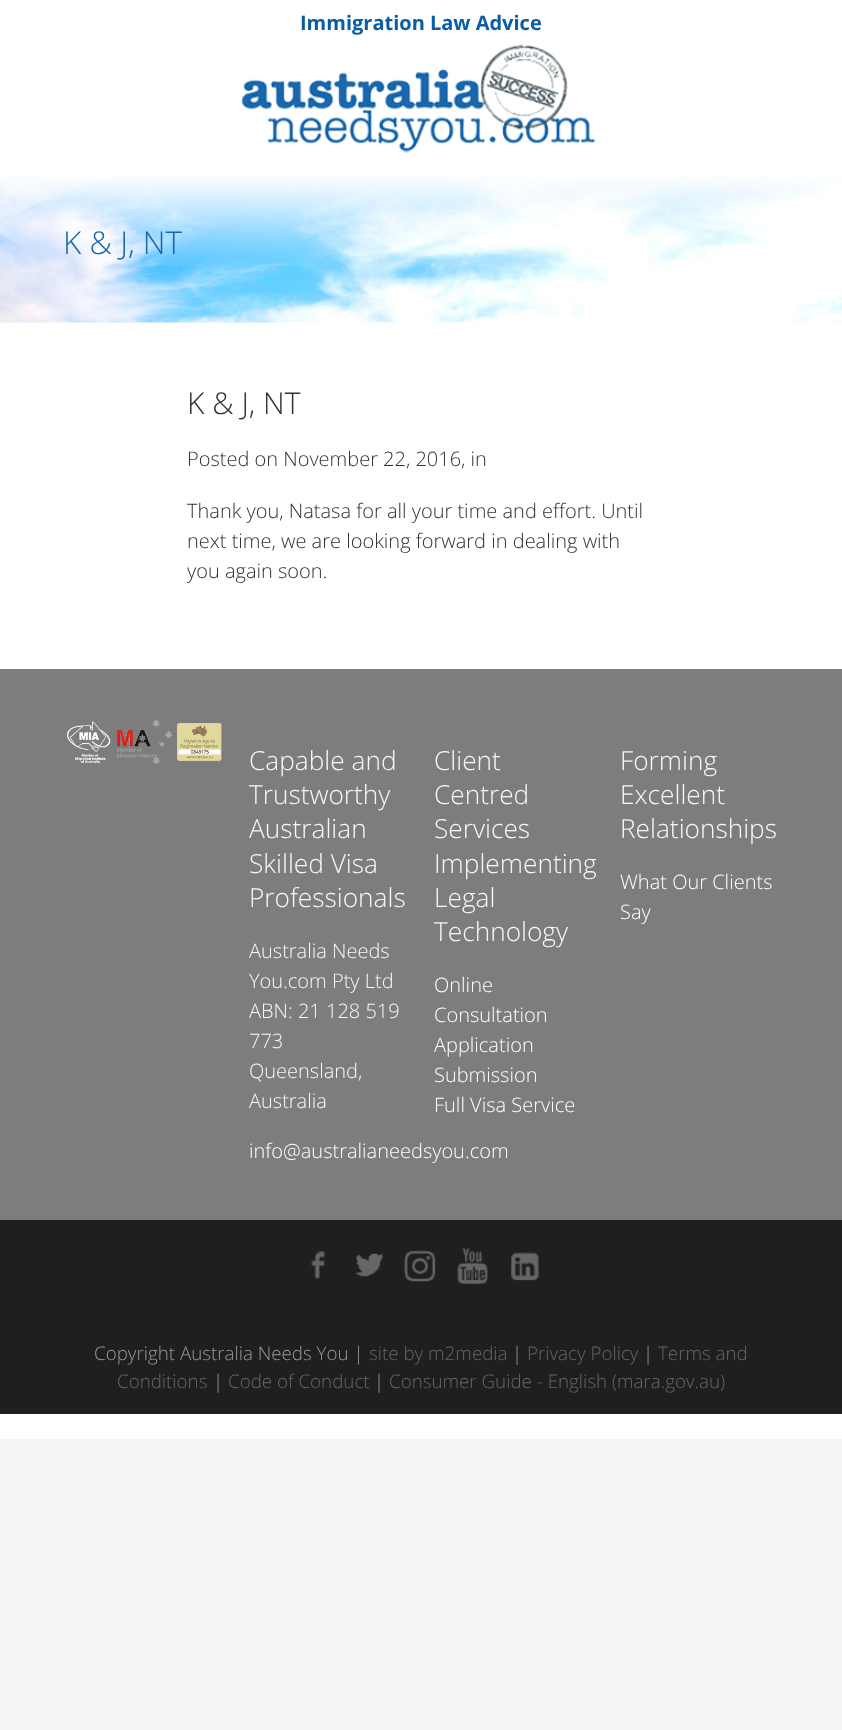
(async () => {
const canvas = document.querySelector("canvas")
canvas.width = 842
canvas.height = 1730
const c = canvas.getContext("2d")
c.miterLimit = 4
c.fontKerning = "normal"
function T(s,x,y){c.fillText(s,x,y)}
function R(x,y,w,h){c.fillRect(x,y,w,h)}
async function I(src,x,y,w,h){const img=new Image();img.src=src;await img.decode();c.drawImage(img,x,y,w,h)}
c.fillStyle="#f5f5f5"
R(0,0,842,1730)
c.fillStyle="#fff"
R(0,0,842,1439)
c.font="bold 20px Open Sans"
c.fillStyle="#085da5"
T("Immigration Law Advice",300,30)
await I("1.png",242,43,354,110)
await I("2.png",0,174,842,149)
c.font="300 31.5px Open Sans"
c.fillStyle="#1a67ac"
T("K & J, NT",63,254)
c.font="300 30px Open Sans"
c.fillStyle="#333"
T("K & J, NT",187,414)
c.font="300 20px Open Sans"
T("Posted on November 22, 2016, in",187,466)
T("Thank you, Natasa for all your time and effort. Until",187,518)
T("next time, we are looking forward in dealing with",187,548)
T("you again soon.",187,578)
c.fillStyle="#7d7d7d"
R(0,669,842,551)
await I("3.png",67,719,155,45)
c.font="300 26.25px Open Sans"
c.fillStyle="#f7f7f7"
T("Capable and",249,770)
T("Trustworthy",249,804)
T("Australian",249,838)
T("Skilled Visa",249,873)
T("Professionals",249,907)
c.font="300 20px Open Sans"
T("Australia Needs",249,958)
T("You.com Pty Ltd",249,988)
T("ABN: 21 128 519",249,1018)
T("773",249,1048)
T("Queensland,",249,1078)
T("Australia",249,1108)
c.fillStyle="#fff"
T("info@australianeedsyou.com",249,1158)
c.font="300 26.25px Open Sans"
c.fillStyle="#f7f7f7"
T("Client",434,770)
T("Centred",434,804)
T("Services",434,838)
T("Implementing",434,873)
T("Legal",434,907)
T("Technology",434,941)
c.font="300 20px Open Sans"
c.fillStyle="#fff"
T("Online",434,992)
T("Consultation",434,1022)
T("Application",434,1052)
T("Submission",434,1082)
T("Full Visa Service",434,1112)
c.font="300 26.25px Open Sans"
c.fillStyle="#f7f7f7"
T("Forming",620,770)
T("Excellent",620,804)
T("Relationships",620,838)
c.font="300 20px Open Sans"
c.fillStyle="#fff"
T("What Our Clients",620,889)
T("Say",620,919)
c.fillStyle="#1f1f1f"
R(0,1220,842,194)
await I("4.png",310,1251,16,29)
await I("5.png",356,1253,27,24)
await I("6.png",403,1250,33,32)
await I("7.png",457,1247,31,37)
await I("8.png",511,1252,28,29)
c.font="300 18.75px Open Sans"
c.fillStyle="#999"
T("Copyright Australia Needs You |",94,1360)
c.fillStyle="#666"
T("site by m2media",369,1360)
c.fillStyle="#999"
T("|",512,1360)
c.fillStyle="#666"
T("Privacy Policy",527,1360)
c.fillStyle="#999"
T("|",643,1360)
c.fillStyle="#666"
T("Terms and",658,1360)
T("Conditions",117,1388)
c.fillStyle="#999"
T("|",213,1388)
c.fillStyle="#666"
T("Code of Conduct",228,1388)
c.fillStyle="#999"
T("|",374,1388)
c.fillStyle="#666"
T("Consumer Guide - English (mara.gov.au)",389,1388)
})()
